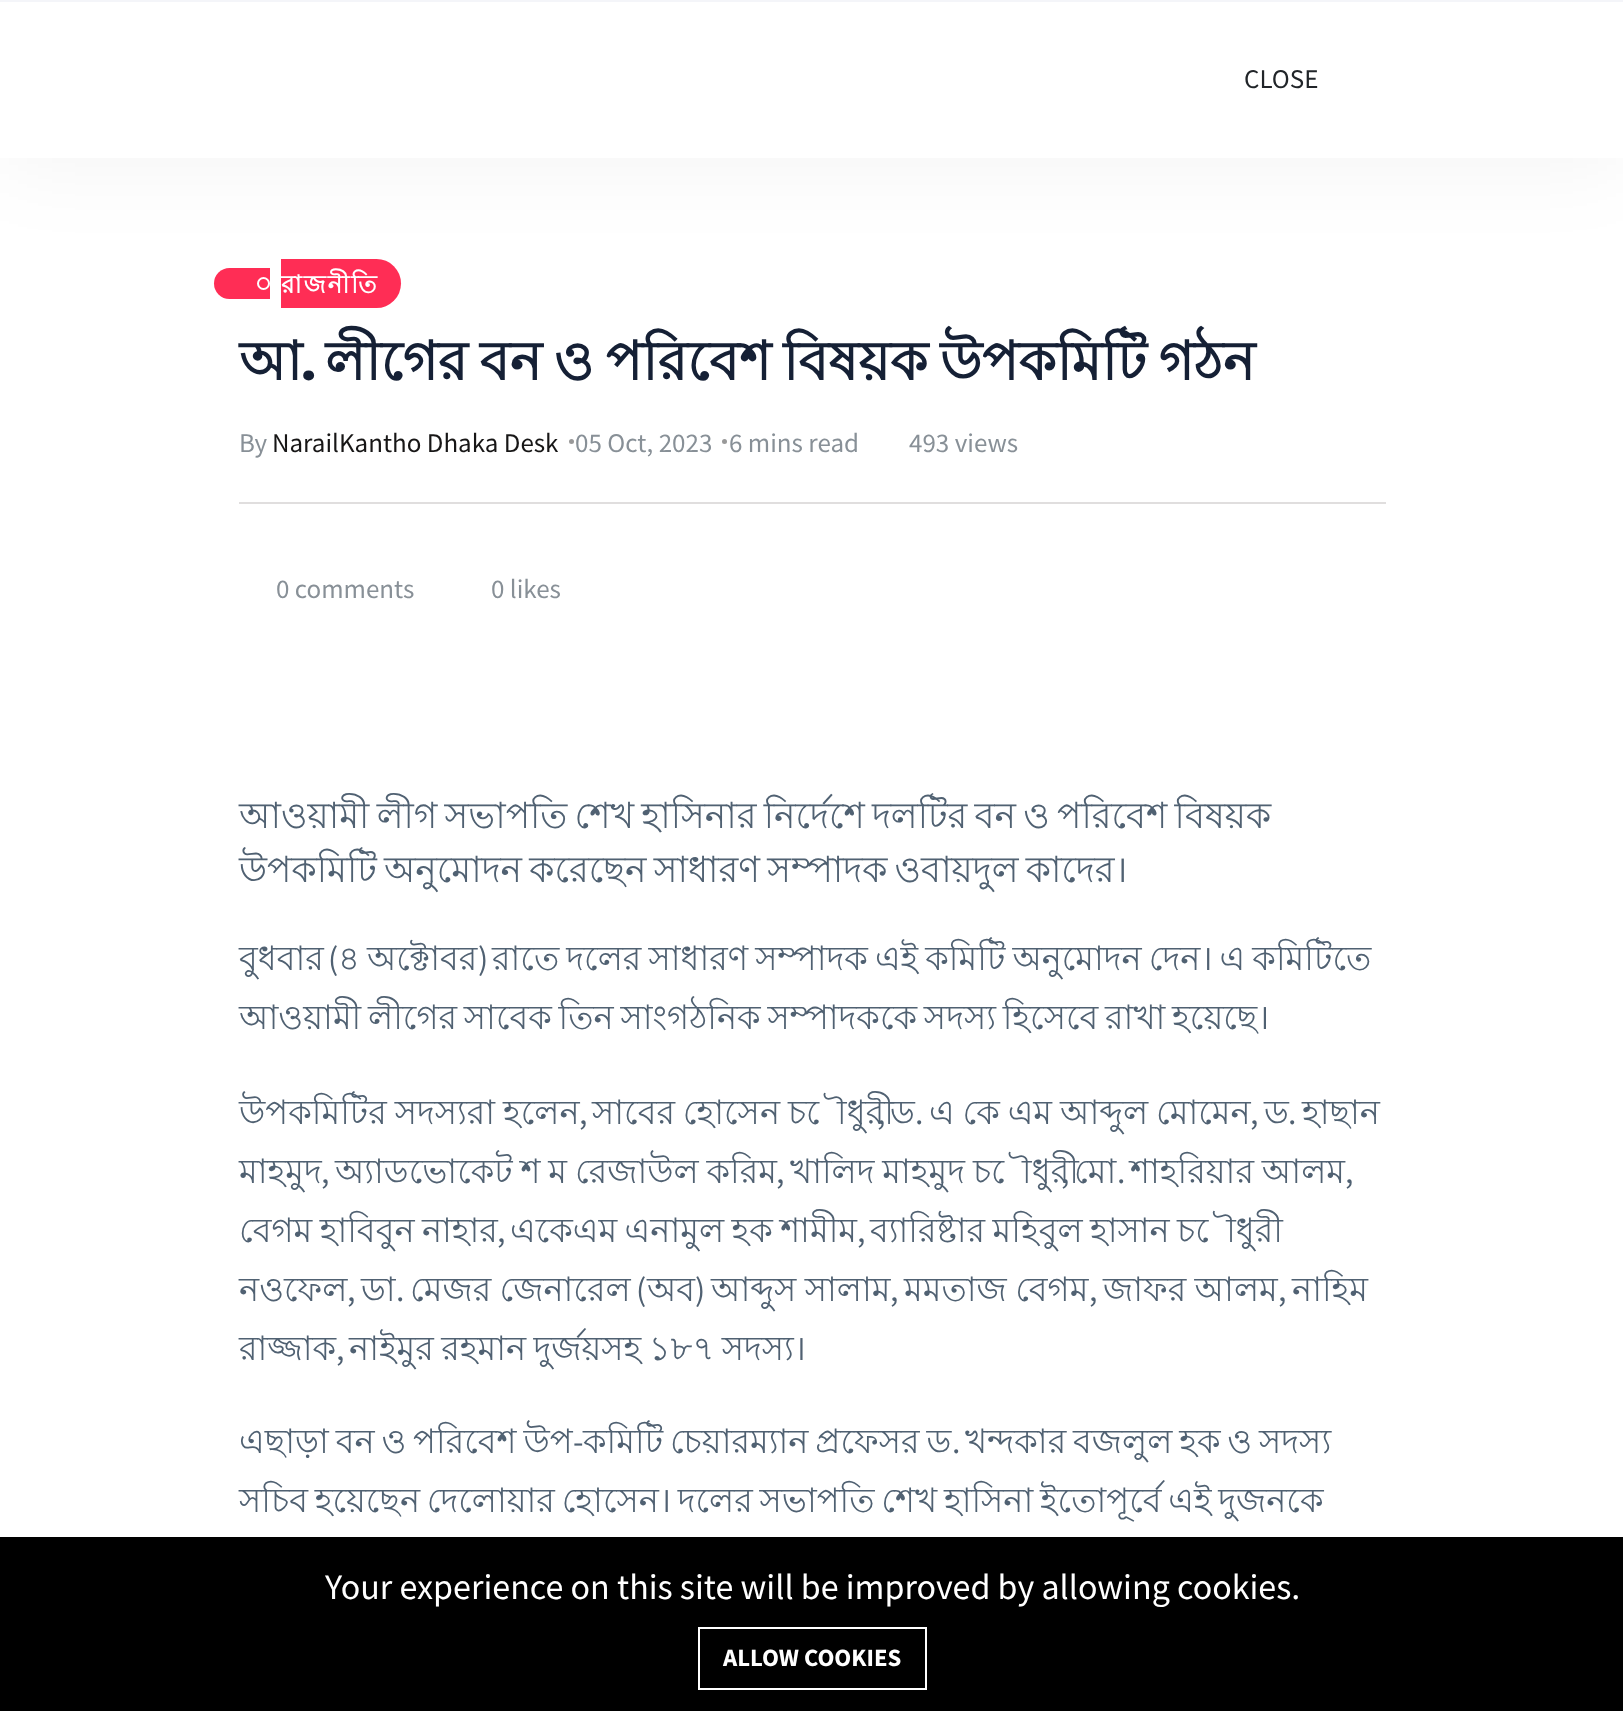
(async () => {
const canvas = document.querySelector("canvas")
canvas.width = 1623
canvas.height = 1711
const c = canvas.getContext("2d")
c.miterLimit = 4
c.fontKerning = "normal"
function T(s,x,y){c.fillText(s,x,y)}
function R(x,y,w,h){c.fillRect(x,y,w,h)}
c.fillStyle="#fff"
R(0,0,1623,1711)
c.fillStyle="#ff2d55"
c.beginPath()
c.roundRect(214,268,56,31,[15.5,0,0,15.5])
c.fill()
c.beginPath()
c.roundRect(281,259,120,49,[0,24.5,24.5,0])
c.fill()
c.beginPath()
c.arc(263.5,283.5,5.5,0,7)
c.strokeStyle="#fff"
c.lineWidth=2
c.stroke()
c.fillStyle="#0000000d"
c.filter="blur(45px)"
c.beginPath()
c.rect(0,0,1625,158)
c.fill()
c.filter="none"
c.fillStyle="#fff"
R(0,2,1623,156)
c.fillStyle="#f4f5f9"
R(0,0,1623,2)
c.font="27px Source Sans Pro"
c.fillStyle="#212529"
T("CLOSE",1244,88)
c.letterSpacing="1.75px"
c.font="bold 24.75px Lohit Bengali"
c.fillStyle="#fff"
T("রাজনীতি",281,293)
c.letterSpacing="0px"
c.font="bold 54px Lohit Bengali"
c.fillStyle="#152035"
T("আ",239,380)
c.font="bold 54px Poppins"
T(".",301,380)
c.wordSpacing="-3px"
c.font="bold 54px Lohit Bengali"
T("লীগের বন ও পরিবেশ বিষয়ক উপকমিটি গঠন",325,380)
c.wordSpacing="0px"
c.font="27px Source Sans Pro"
c.fillStyle="#889097"
T("By",239,452)
c.fillStyle="#171616"
T("NarailKantho Dhaka Desk",272,452)
c.fillStyle="#999"
c.beginPath()
c.arc(571.5,441.5,2.5,0,7)
c.fill()
c.fillStyle="#889097"
T("05 Oct, 2023",575,452)
c.fillStyle="#999"
c.beginPath()
c.arc(724.5,441.5,2.5,0,7)
c.fill()
c.fillStyle="#889097"
T("6 mins read",729,452)
T("493 views",909,452)
c.fillStyle="#e0dede"
R(239,502,1147,2)
c.fillStyle="#889097"
T("0 comments",276,598)
T("0 likes",491,598)
c.wordSpacing="-2.75px"
c.font="36px Lohit Bengali"
c.fillStyle="#506172"
T("আওয়ামী লীগ সভাপতি শেখ হাসিনার নির্দেশে দলটির বন ও পরিবেশ বিষয়ক",239,828)
T("উপকমিটি অনুমোদন করেছেন সাধারণ সম্পাদক ওবায়দুল কাদের।",239,882)
c.wordSpacing="0px"
c.font="33.75px Lohit Bengali"
T("বুধবার",239,970)
c.font="33.75px Source Sans Pro"
T("(",328,970)
c.wordSpacing="-2.25px"
c.font="33.75px Lohit Bengali"
T("৪ অক্টোবর",338,970)
c.wordSpacing="0px"
c.font="33.75px Source Sans Pro"
T(")",478,970)
c.wordSpacing="-2.25px"
c.font="33.75px Lohit Bengali"
T("রাতে দলের সাধারণ সম্পাদক এই কমিটি অনুমোদন দেন। এ কমিটিতে",492,970)
c.wordSpacing="-2.6px"
T("আওয়ামী লীগের সাবেক তিন সাংগঠনিক সম্পাদককে সদস্য হিসেবে রাখা হয়েছে।",239,1029)
c.wordSpacing="-1.5px"
T("উপকমিটির সদস্যরা হলেন",239,1124)
T("সাবের হোসেন চৌধুরী",592,1124)
c.wordSpacing="0px"
T("ড",890,1124)
c.wordSpacing="-1.5px"
T("এ কে এম আব্দুল মোমেন",929,1124)
c.wordSpacing="0px"
T("ড",1264,1124)
T("হাছান",1302,1124)
c.font="33.75px Source Sans Pro"
T(",",579,1124)
T(",",877,1124)
T(".",915,1124)
T(",",1250,1124)
T(".",1288,1124)
c.font="33.75px Lohit Bengali"
T("মাহমুদ",239,1183)
c.font="33.75px Source Sans Pro"
T(",",321,1183)
c.wordSpacing="-1.5px"
c.font="33.75px Lohit Bengali"
T("অ্যাডভোকেট শ ম রেজাউল করিম",335,1183)
c.wordSpacing="0px"
c.font="33.75px Source Sans Pro"
T(",",776,1183)
c.wordSpacing="-1.5px"
c.font="33.75px Lohit Bengali"
T("খালিদ মাহমুদ চৌধুরী",790,1183)
c.wordSpacing="0px"
c.font="33.75px Source Sans Pro"
T(",",1061,1183)
c.font="33.75px Lohit Bengali"
T("মো",1074,1183)
c.font="33.75px Source Sans Pro"
T(".",1117,1183)
c.wordSpacing="-1.5px"
c.font="33.75px Lohit Bengali"
T("শাহরিয়ার আলম",1130,1183)
c.wordSpacing="0px"
c.font="33.75px Source Sans Pro"
T(",",1345,1183)
c.wordSpacing="-2px"
c.font="33.75px Lohit Bengali"
T("বেগম হাবিবুন নাহার",239,1242)
c.wordSpacing="0px"
c.font="33.75px Source Sans Pro"
T(",",497,1242)
c.wordSpacing="-2px"
c.font="33.75px Lohit Bengali"
T("একেএম এনামুল হক শামীম",510,1242)
c.wordSpacing="0px"
c.font="33.75px Source Sans Pro"
T(",",857,1242)
c.wordSpacing="-2px"
c.font="33.75px Lohit Bengali"
T("ব্যারিষ্টার মহিবুল হাসান চৌধুরী",870,1242)
c.wordSpacing="0px"
T("নওফেল",239,1301)
T("ডা",361,1301)
c.wordSpacing="-1px"
T("মেজর জেনারেল",410,1301)
c.wordSpacing="0px"
c.font="33.75px Source Sans Pro"
T("(",636,1301)
c.font="33.75px Lohit Bengali"
T("অব",647,1301)
c.font="33.75px Source Sans Pro"
T(")",695,1301)
c.wordSpacing="-1px"
c.font="33.75px Lohit Bengali"
T("আব্দুস সালাম",711,1301)
T("মমতাজ বেগম",904,1301)
T("জাফর আলম",1103,1301)
c.wordSpacing="0px"
T("নাহিম",1292,1301)
c.font="33.75px Source Sans Pro"
T(",",347,1301)
T(".",396,1301)
T(",",890,1301)
T(",",1089,1301)
T(",",1278,1301)
c.font="33.75px Lohit Bengali"
T("রাজ্জাক",239,1360)
c.font="33.75px Source Sans Pro"
T(",",336,1360)
c.wordSpacing="-2px"
c.font="33.75px Lohit Bengali"
T("নাইমুর রহমান দুর্জয়সহ ১৮৭ সদস্য।",349,1360)
c.wordSpacing="-2.5px"
T("এছাড়া বন ও পরিবেশ উপ",239,1453)
c.wordSpacing="0px"
c.font="33.75px Source Sans Pro"
T("-",573,1453)
c.wordSpacing="-2.5px"
c.font="33.75px Lohit Bengali"
T("কমিটি চেয়ারম্যান প্রফেসর ড",583,1453)
T("খন্দকার বজলুল হক ও সদস্য",965,1453)
c.wordSpacing="0px"
c.font="33.75px Source Sans Pro"
T(".",952,1453)
c.wordSpacing="-2.6px"
c.font="33.75px Lohit Bengali"
T("সচিব হয়েছেন দেলোয়ার হোসেন। দলের সভাপতি শেখ হাসিনা ইতোপূর্বে এই দুজনকে",239,1512)
c.fillStyle="#000"
R(0,1537,1623,174)
c.wordSpacing="0px"
c.font="36px Source Sans Pro"
c.fillStyle="#fff"
T("Your experience on this site will be improved by allowing cookies.",325,1599)
c.strokeRect(699,1628,227,61)
c.font="bold 24.75px Source Sans Pro"
T("ALLOW COOKIES",723,1666)
})()
